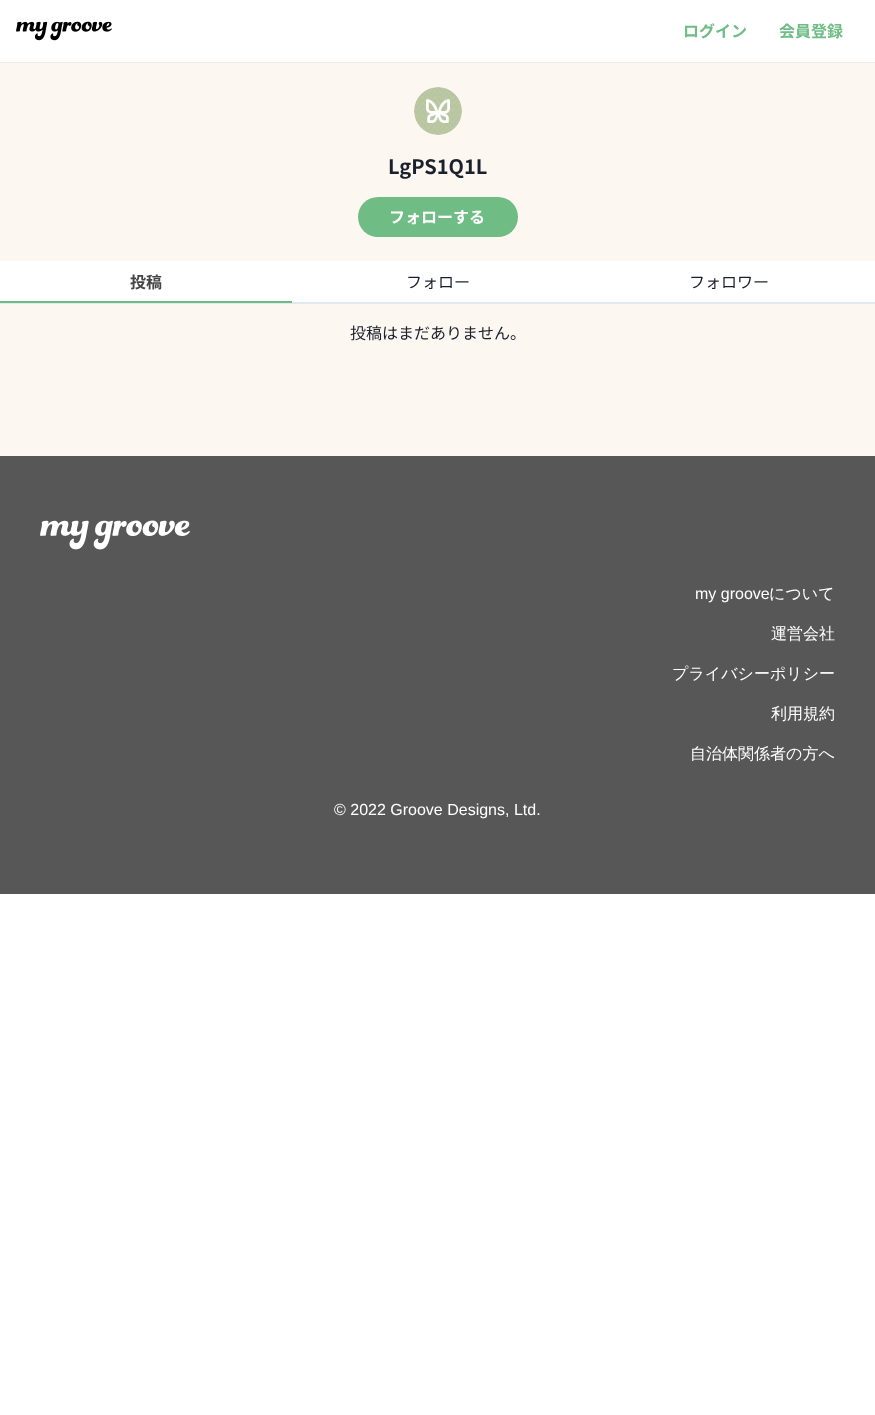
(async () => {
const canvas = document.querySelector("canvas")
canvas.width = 875
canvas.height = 1415
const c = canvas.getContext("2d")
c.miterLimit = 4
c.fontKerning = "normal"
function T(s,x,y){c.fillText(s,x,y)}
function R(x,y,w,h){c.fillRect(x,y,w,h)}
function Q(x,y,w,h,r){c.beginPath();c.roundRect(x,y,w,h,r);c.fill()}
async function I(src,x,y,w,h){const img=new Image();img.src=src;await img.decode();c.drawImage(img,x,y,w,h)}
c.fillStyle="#fff"
R(0,0,875,1415)
c.fillStyle="#ebebeb"
R(0,62,875,1)
await I("1.png",16,21,96,20)
c.font="bold 16px Noto Sans JP"
c.fillStyle="#6fbc85"
T("ログイン",683,37)
T("会員登録",779,37)
c.fillStyle="#fdf7f1"
R(0,63,875,393)
await I("2.png",414,87,48,48)
c.font="bold 20px Noto Sans JP"
c.fillStyle="#1a202c"
T("LgPS1Q1L",388,174)
c.fillStyle="#6fbc85"
Q(358,197,160,40,20)
c.font="bold 16px Noto Sans JP"
c.fillStyle="#fff"
T("フォローする",389,223)
R(0,261,875,41)
c.fillStyle="#e2e8f0"
R(0,302,875,2)
c.fillStyle="#6fbc85"
R(0,301,292,2)
c.fillStyle="#454545"
T("投稿",130,288)
c.font="16px Noto Sans JP"
c.fillStyle="#1a202c"
T("フォロー",406,288)
T("フォロワー",689,288)
T("投稿はまだありません。",350,339)
c.fillStyle="#575757"
R(0,456,875,438)
await I("3.png",40,520,150,30)
c.font="16px Liberation Sans"
c.fillStyle="#fff"
T("my groove",695,599)
c.font="500 16px WenQuanYi Zen Hei"
T("について",769,599)
T("運営会社",771,639)
T("プライバシーポリシー",672,679)
T("利用規約",771,719)
T("自治体関係者の方へ",690,759)
c.font="16px Liberation Sans"
T("©︎ 2022 Groove Designs, Ltd.",334,815)
})()
